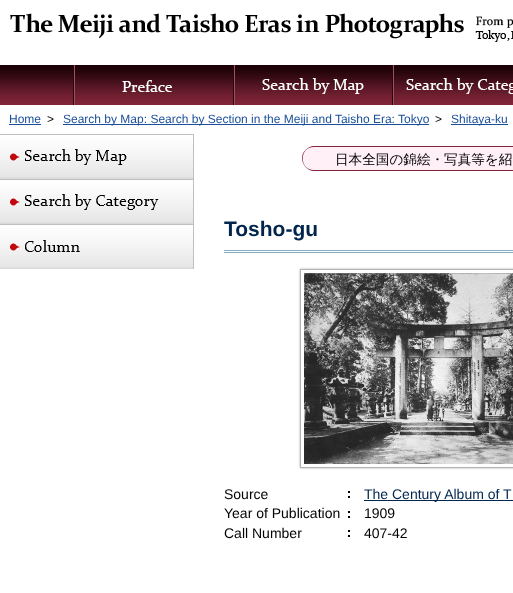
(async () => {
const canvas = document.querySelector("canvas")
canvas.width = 513
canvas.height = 593
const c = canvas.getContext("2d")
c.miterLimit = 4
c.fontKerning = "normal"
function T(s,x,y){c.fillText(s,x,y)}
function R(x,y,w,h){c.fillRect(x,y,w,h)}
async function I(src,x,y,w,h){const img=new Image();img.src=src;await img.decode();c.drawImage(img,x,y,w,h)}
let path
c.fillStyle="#fff"
R(0,0,513,593)
await I("1.png",10,13,503,29)
c.fillStyle="#1b0107"
R(0,65,513,3)
await I("2.png",0,68,513,37)
await I("3.png",73,65,162,40)
await I("4.png",262,65,132,40)
await I("5.png",406,78,107,16)
c.font="12px Liberation Sans"
c.fillStyle="#1a4f99"
T("Home",9,123)
R(9,124,32,1)
c.fillStyle="#000"
T(">",47,123)
c.fillStyle="#1a4f99"
R(63,124,366,1)
T("Search by Map: Search by Section in the Meiji and Taisho Era: Tokyo",63,123)
c.fillStyle="#000"
T(">",435,123)
c.fillStyle="#1a4f99"
R(451,124,57,1)
T("Shitaya-ku",451,123)
await I("6.png",0,134,194,45)
await I("7.png",0,179,194,45)
await I("8.png",0,224,194,45)
c.fillStyle="#ffeff7"
path = new Path2D("M314.5 146h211.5v25h-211.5c-7 0-12.5-5.5-12.5-12.5c0-7 5.5-12.5 12.5-12.5z")
c.fill(path)
c.fillStyle="#822539"
path = new Path2D("M314 146h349v25h-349c-6 0-12-6-12-13c0-6 6-12 12-12zm0 1h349v23h-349c-15 0-15-23 0-23z")
c.fill(path,"evenodd")
c.font="500 13.6px WenQuanYi Zen Hei"
c.fillStyle="#000"
T("日本全国の錦絵・写真等を紹",335,164)
c.fillStyle="#83abc1"
R(224,250,289,1)
R(224,252,289,1)
c.font="bold 21px Liberation Sans"
c.fillStyle="#02254d"
T("Tosho-gu",224,236)
await I("9.png",298,267,215,203)
await I("10.png",304,273,209,191)
await I("11.png",348,491,2,7)
c.font="14px Liberation Sans"
c.fillStyle="#000"
T("Source",224,499)
c.fillStyle="#02254d"
R(364,500,149,1)
T("The Century Album of T",364,499)
await I("11.png",348,511,2,7)
c.fillStyle="#000"
T("Year of Publication",224,518)
T("1909",364,518)
await I("11.png",348,530,2,7)
T("Call Number",224,538)
T("407-42",364,538)
})()
